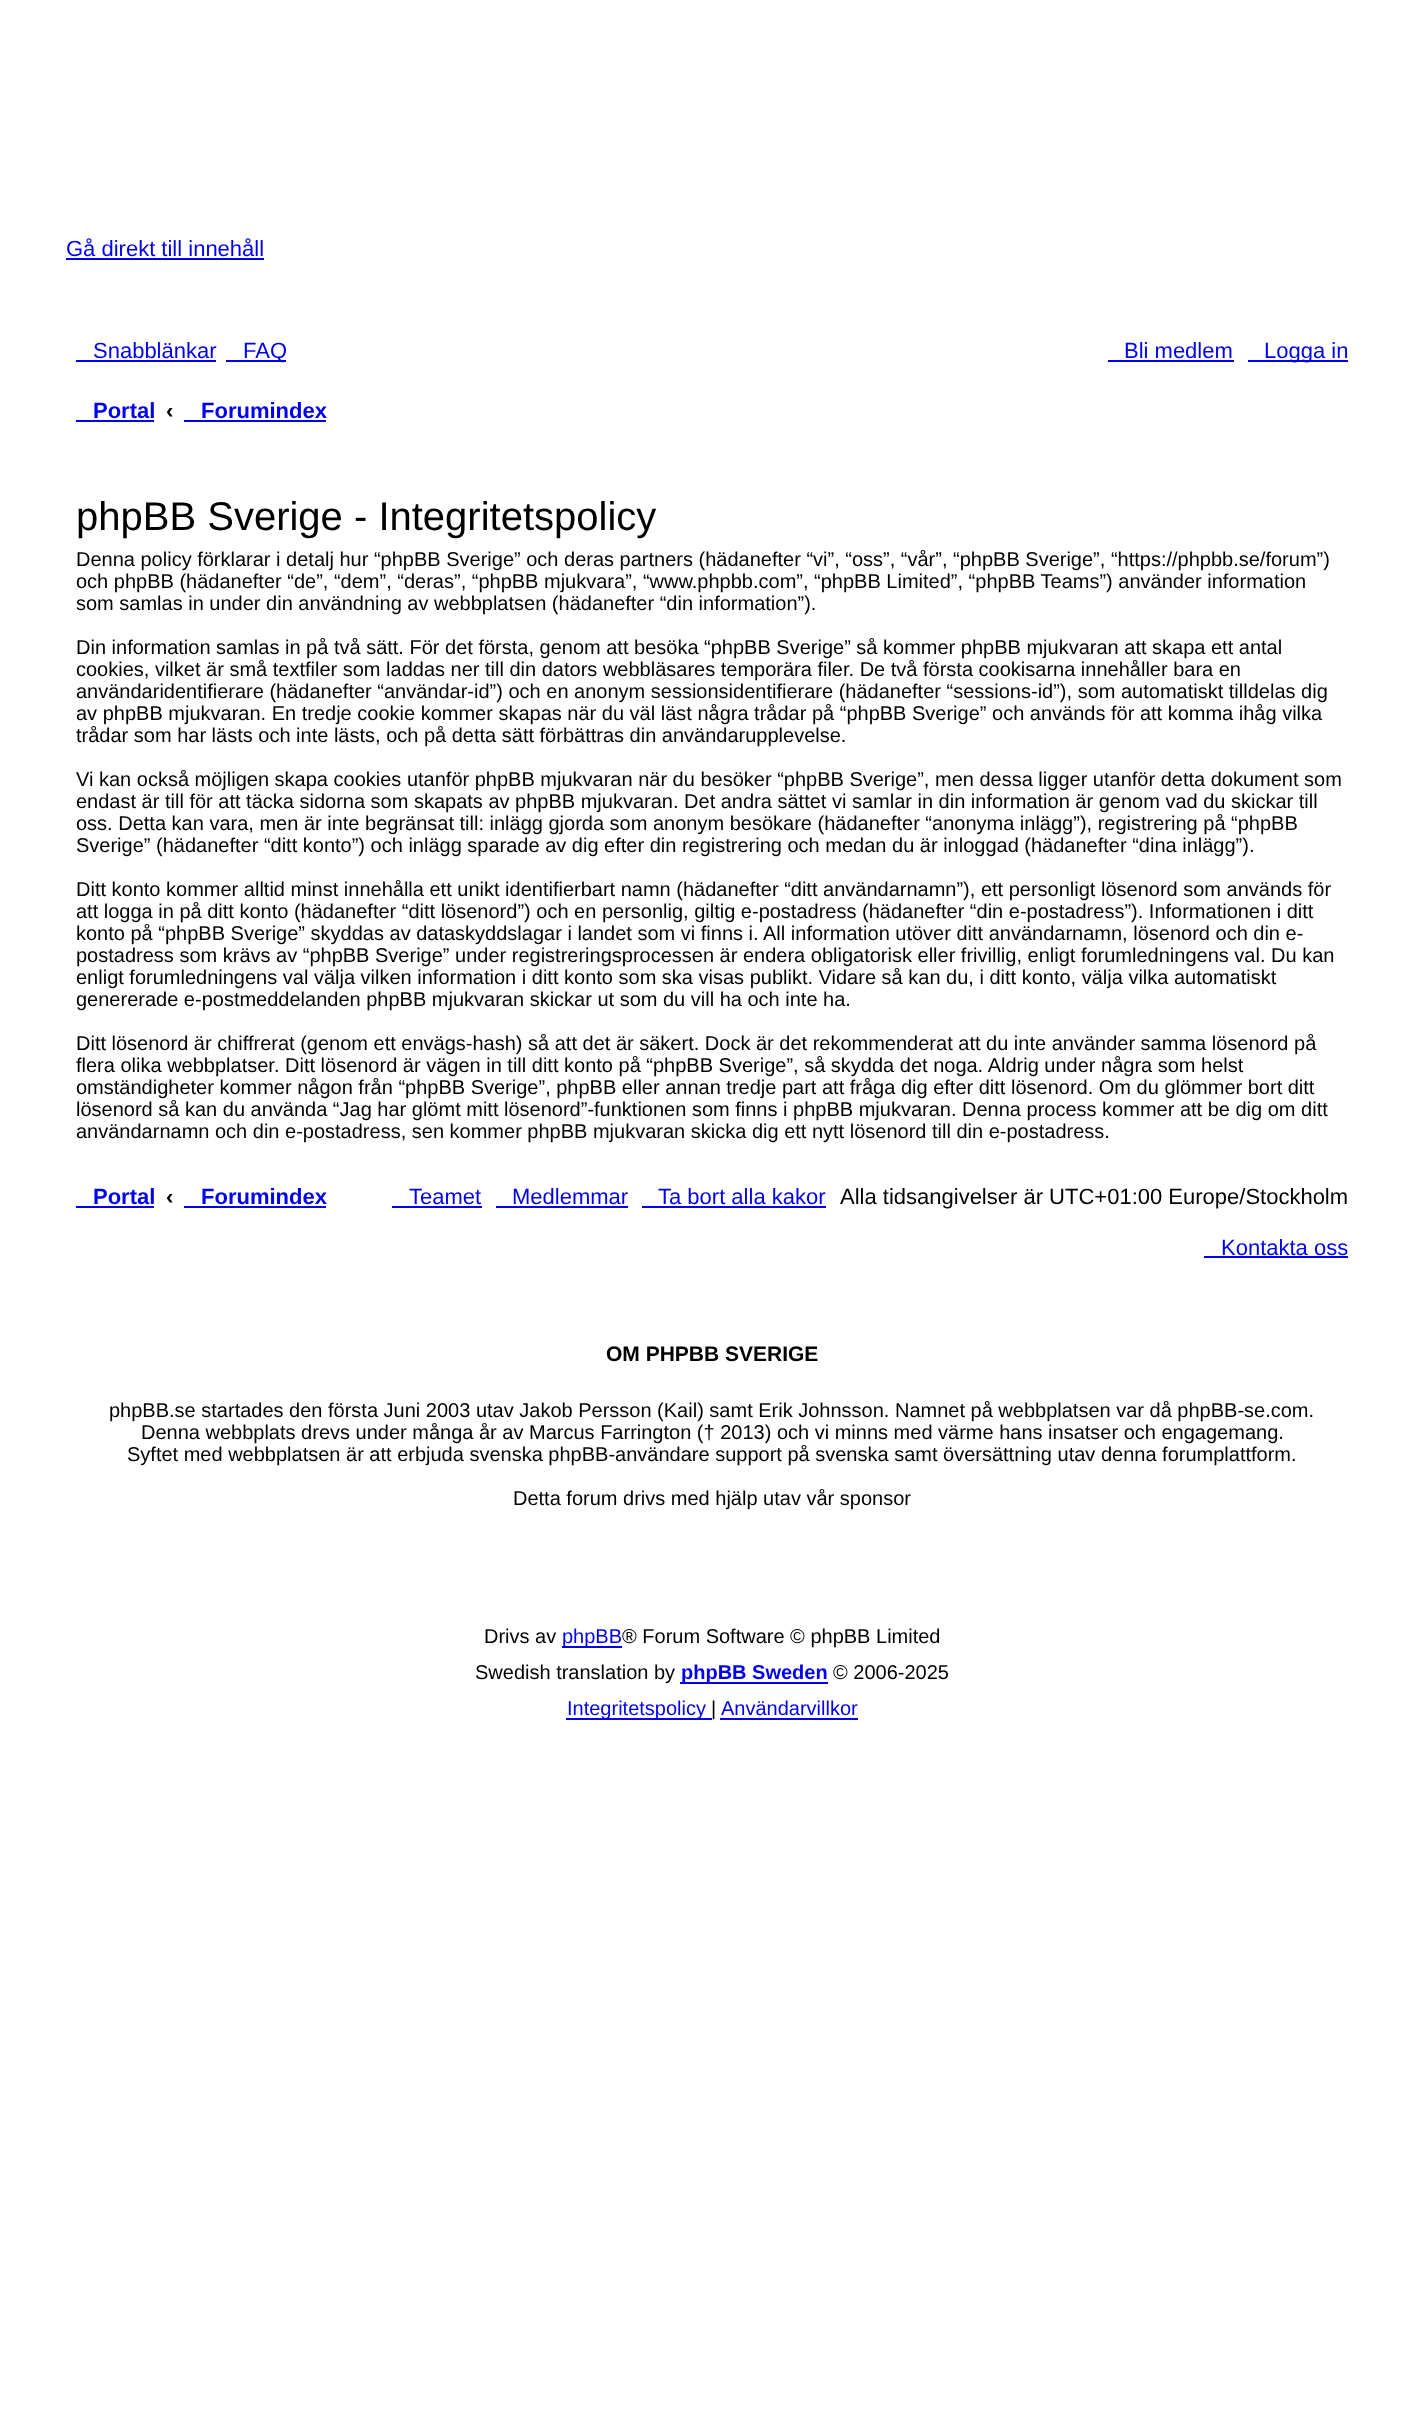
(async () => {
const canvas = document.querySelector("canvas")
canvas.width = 1424
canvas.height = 2418
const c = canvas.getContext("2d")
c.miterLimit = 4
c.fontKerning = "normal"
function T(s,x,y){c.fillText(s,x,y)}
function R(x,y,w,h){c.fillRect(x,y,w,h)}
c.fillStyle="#fff"
R(0,0,1424,2418)
c.font="22px Liberation Sans"
c.fillStyle="#00e"
T("Gå direkt till innehåll",66,256)
R(66,258,198,2)
T("Snabblänkar",93,358)
R(76,360,140,2)
R(226,360,60,2)
T("FAQ",243,358)
T("Bli medlem",1124,358)
R(1108,360,126,2)
R(1248,360,100,2)
T("Logga in",1264,358)
c.font="bold 22px Liberation Sans"
T("Portal",93,418)
R(76,420,78,2)
c.fillStyle="#000"
T("‹",166,418)
c.fillStyle="#00e"
T("Forumindex",201,418)
R(184,420,142,2)
c.font="40px Liberation Sans"
c.fillStyle="#000"
T("phpBB Sverige - Integritetspolicy",76,530)
c.font="20px Liberation Sans"
T("Denna policy förklarar i detalj hur “phpBB Sverige” och deras partners (hädanefter “vi”, “oss”, “vår”, “phpBB Sverige”, “https://phpbb.se/forum”)",76,566)
T("och phpBB (hädanefter “de”, “dem”, “deras”, “phpBB mjukvara”, “www.phpbb.com”, “phpBB Limited”, “phpBB Teams”) använder information",76,588)
T("som samlas in under din användning av webbplatsen (hädanefter “din information”).",76,610)
T("Din information samlas in på två sätt. För det första, genom att besöka “phpBB Sverige” så kommer phpBB mjukvaran att skapa ett antal",76,654)
T("cookies, vilket är små textfiler som laddas ner till din dators webbläsares temporära filer. De två första cookisarna innehåller bara en",76,676)
T("användaridentifierare (hädanefter “användar-id”) och en anonym sessionsidentifierare (hädanefter “sessions-id”), som automatiskt tilldelas dig",76,698)
T("av phpBB mjukvaran. En tredje cookie kommer skapas när du väl läst några trådar på “phpBB Sverige” och används för att komma ihåg vilka",76,720)
T("trådar som har lästs och inte lästs, och på detta sätt förbättras din användarupplevelse.",76,742)
T("Vi kan också möjligen skapa cookies utanför phpBB mjukvaran när du besöker “phpBB Sverige”, men dessa ligger utanför detta dokument som",76,786)
T("endast är till för att täcka sidorna som skapats av phpBB mjukvaran. Det andra sättet vi samlar in din information är genom vad du skickar till",76,808)
T("oss. Detta kan vara, men är inte begränsat till: inlägg gjorda som anonym besökare (hädanefter “anonyma inlägg”), registrering på “phpBB",76,830)
T("Sverige” (hädanefter “ditt konto”) och inlägg sparade av dig efter din registrering och medan du är inloggad (hädanefter “dina inlägg”).",76,852)
T("Ditt konto kommer alltid minst innehålla ett unikt identifierbart namn (hädanefter “ditt användarnamn”), ett personligt lösenord som används för",76,896)
T("att logga in på ditt konto (hädanefter “ditt lösenord”) och en personlig, giltig e-postadress (hädanefter “din e-postadress”). Informationen i ditt",76,918)
T("konto på “phpBB Sverige” skyddas av dataskyddslagar i landet som vi finns i. All information utöver ditt användarnamn, lösenord och din e-",76,940)
T("postadress som krävs av “phpBB Sverige” under registreringsprocessen är endera obligatorisk eller frivillig, enligt forumledningens val. Du kan",76,962)
T("enligt forumledningens val välja vilken information i ditt konto som ska visas publikt. Vidare så kan du, i ditt konto, välja vilka automatiskt",76,984)
T("genererade e-postmeddelanden phpBB mjukvaran skickar ut som du vill ha och inte ha.",76,1006)
T("Ditt lösenord är chiffrerat (genom ett envägs-hash) så att det är säkert. Dock är det rekommenderat att du inte använder samma lösenord på",76,1050)
T("flera olika webbplatser. Ditt lösenord är vägen in till ditt konto på “phpBB Sverige”, så skydda det noga. Aldrig under några som helst",76,1072)
T("omständigheter kommer någon från “phpBB Sverige”, phpBB eller annan tredje part att fråga dig efter ditt lösenord. Om du glömmer bort ditt",76,1094)
T("lösenord så kan du använda “Jag har glömt mitt lösenord”-funktionen som finns i phpBB mjukvaran. Denna process kommer att be dig om ditt",76,1116)
T("användarnamn och din e-postadress, sen kommer phpBB mjukvaran skicka dig ett nytt lösenord till din e-postadress.",76,1138)
c.font="bold 22px Liberation Sans"
c.fillStyle="#00e"
T("Portal",93,1204)
R(76,1206,78,2)
c.fillStyle="#000"
T("‹",166,1204)
c.fillStyle="#00e"
T("Forumindex",201,1204)
R(184,1206,142,2)
c.font="22px Liberation Sans"
T("Teamet",409,1204)
R(392,1206,90,2)
T("Medlemmar",512,1204)
R(496,1206,132,2)
T("Ta bort alla kakor",658,1204)
R(642,1206,184,2)
c.fillStyle="#000"
T("Alla tidsangivelser är UTC+01:00 Europe/Stockholm",840,1204)
c.fillStyle="#00e"
T("Kontakta oss",1221,1255)
R(1204,1256,144,2)
c.font="bold 21px Liberation Sans"
c.fillStyle="#000"
T("OM PHPBB SVERIGE",606,1361)
c.font="20px Liberation Sans"
T("phpBB.se startades den första Juni 2003 utav Jakob Persson (Kail) samt Erik Johnsson. Namnet på webbplatsen var då phpBB-se.com.",109,1417)
T("Denna webbplats drevs under många år av Marcus Farrington († 2013) och vi minns med värme hans insatser och engagemang.",141,1439)
T("Syftet med webbplatsen är att erbjuda svenska phpBB-användare support på svenska samt översättning utav denna forumplattform.",127,1461)
T("Detta forum drivs med hjälp utav vår sponsor",513,1505)
T("Drivs av",484,1643)
c.fillStyle="#00e"
R(562,1646,60,2)
T("phpBB",562,1643)
c.fillStyle="#000"
T("® Forum Software © phpBB Limited",622,1643)
T("Swedish translation by",475,1679)
c.fillStyle="#00e"
R(680,1682,148,2)
c.font="bold 20px Liberation Sans"
T("phpBB Sweden",681,1679)
c.font="20px Liberation Sans"
c.fillStyle="#000"
T("© 2006-2025",833,1679)
c.fillStyle="#00e"
R(566,1718,146,2)
T("Integritetspolicy",567,1715)
c.fillStyle="#000"
T("|",711,1715)
c.fillStyle="#00e"
T("Användarvillkor",721,1715)
R(720,1718,138,2)
})()
